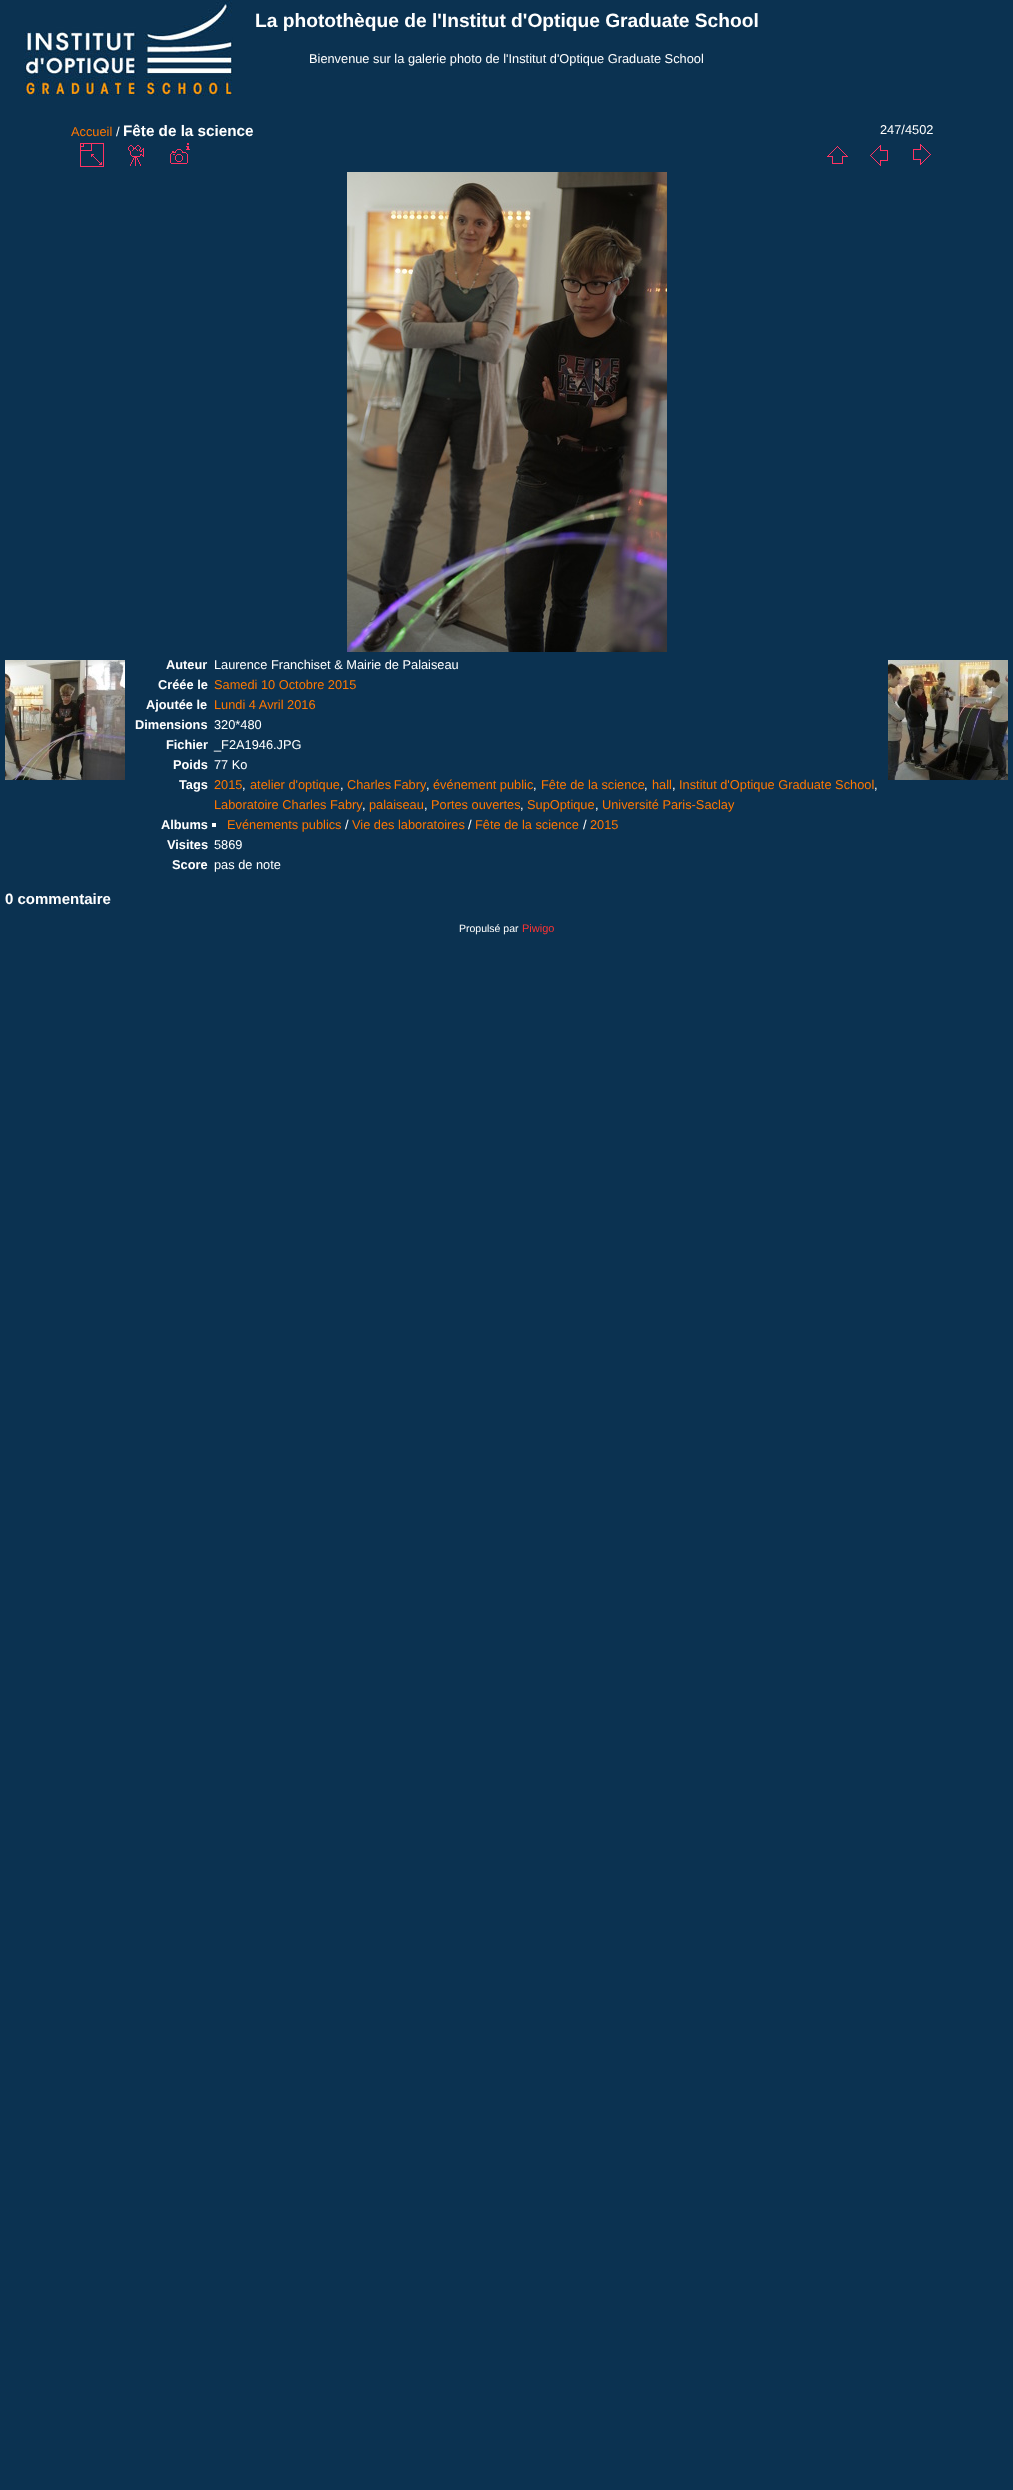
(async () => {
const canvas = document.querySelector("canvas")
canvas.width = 1013
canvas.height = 2490
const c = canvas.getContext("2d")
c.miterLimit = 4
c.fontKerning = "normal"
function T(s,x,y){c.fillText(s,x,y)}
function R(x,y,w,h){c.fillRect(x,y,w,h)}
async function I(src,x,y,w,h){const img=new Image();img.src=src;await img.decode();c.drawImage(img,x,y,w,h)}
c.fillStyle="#0b3251"
R(0,0,1013,2490)
await I("1.png",24,0,209,96)
c.font="bold 19.2px Liberation Sans"
c.fillStyle="#fff"
T("La photothèque de l'Institut d'Optique Graduate School",255,27)
c.font="12.8px Liberation Sans"
T("Bienvenue sur la galerie photo de l'Institut d'Optique Graduate School",309,63)
c.fillStyle="#f70"
T("Accueil",71,136)
c.fillStyle="#fff"
T("/",116,136)
c.font="bold 15.25px Liberation Sans"
T("Fête de la science",123,136)
c.font="12.8px Liberation Sans"
T("247/4502",880,134)
await I("2.png",80,143,24,24)
await I("3.png",128,145,16,21)
await I("4.png",170,143,20,21)
await I("5.png",827,146,21,18)
await I("6.png",870,145,18,21)
await I("7.png",913,144,18,21)
await I("8.png",347,172,320,480)
c.font="bold 12.8px Liberation Sans"
T("Auteur",166,669)
c.font="12.8px Liberation Sans"
T("Laurence Franchiset & Mairie de Palaiseau",214,669)
c.font="bold 12.8px Liberation Sans"
T("Créée le",158,689)
c.font="12.8px Liberation Sans"
c.fillStyle="#f70"
T("Samedi 10 Octobre 2015",214,689)
c.font="bold 12.8px Liberation Sans"
c.fillStyle="#fff"
T("Ajoutée le",146,709)
c.font="12.8px Liberation Sans"
c.fillStyle="#f70"
T("Lundi 4 Avril 2016",214,709)
c.font="bold 12.8px Liberation Sans"
c.fillStyle="#fff"
T("Dimensions",135,729)
c.font="12.8px Liberation Sans"
T("320*480",214,729)
c.font="bold 12.8px Liberation Sans"
T("Fichier",166,749)
c.font="12.8px Liberation Sans"
T("_F2A1946.JPG",214,749)
c.font="bold 12.8px Liberation Sans"
T("Poids",173,769)
c.font="12.8px Liberation Sans"
T("77 Ko",214,769)
c.font="bold 12.8px Liberation Sans"
T("Tags",179,789)
c.font="12.8px Liberation Sans"
c.fillStyle="#f70"
T("2015",214,789)
c.fillStyle="#fff"
T(",",242,789)
c.fillStyle="#f70"
T("atelier d'optique",250,789)
c.fillStyle="#fff"
T(",",340,789)
c.wordSpacing="-1px"
c.fillStyle="#f70"
T("Charles Fabry",347,789)
c.wordSpacing="0px"
c.fillStyle="#fff"
T(",",426,789)
c.fillStyle="#f70"
T("événement public",433,789)
c.fillStyle="#fff"
T(",",533,789)
c.fillStyle="#f70"
T("Fête de la science",541,789)
c.fillStyle="#fff"
T(",",644,789)
c.fillStyle="#f70"
T("hall",652,789)
c.fillStyle="#fff"
T(",",672,789)
c.fillStyle="#f70"
T("Institut d'Optique Graduate School",679,789)
c.fillStyle="#fff"
T(",",874,789)
c.fillStyle="#f70"
T("Laboratoire Charles Fabry",214,809)
c.fillStyle="#fff"
T(",",362,809)
c.fillStyle="#f70"
T("palaiseau",369,809)
c.fillStyle="#fff"
T(",",424,809)
c.fillStyle="#f70"
T("Portes ouvertes",431,809)
c.fillStyle="#fff"
T(",",520,809)
c.fillStyle="#f70"
T("SupOptique",527,809)
c.fillStyle="#fff"
T(",",595,809)
c.fillStyle="#f70"
T("Université Paris-Saclay",602,809)
c.font="bold 12.8px Liberation Sans"
c.fillStyle="#fff"
T("Albums",161,829)
R(212,823,4,4)
c.font="12.8px Liberation Sans"
c.fillStyle="#f70"
T("Evénements publics",227,829)
c.fillStyle="#fff"
T("/",345,829)
c.fillStyle="#f70"
T("Vie des laboratoires",352,829)
c.fillStyle="#fff"
T("/",468,829)
c.fillStyle="#f70"
T("Fête de la science",475,829)
c.fillStyle="#fff"
T("/",583,829)
c.fillStyle="#f70"
T("2015",590,829)
c.font="bold 12.8px Liberation Sans"
c.fillStyle="#fff"
T("Visites",167,849)
c.font="12.8px Liberation Sans"
T("5869",214,849)
c.font="bold 12.8px Liberation Sans"
T("Score",172,869)
c.font="12.8px Liberation Sans"
T("pas de note",214,869)
await I("9.png",5,660,120,120)
await I("10.png",888,660,120,120)
c.font="bold 15px Liberation Sans"
T("0 commentaire",5,904)
c.font="10.5px Liberation Sans"
T("Propulsé par",459,932)
c.font="11px Liberation Sans"
c.fillStyle="#f33"
T("Piwigo",522,932)
})()
